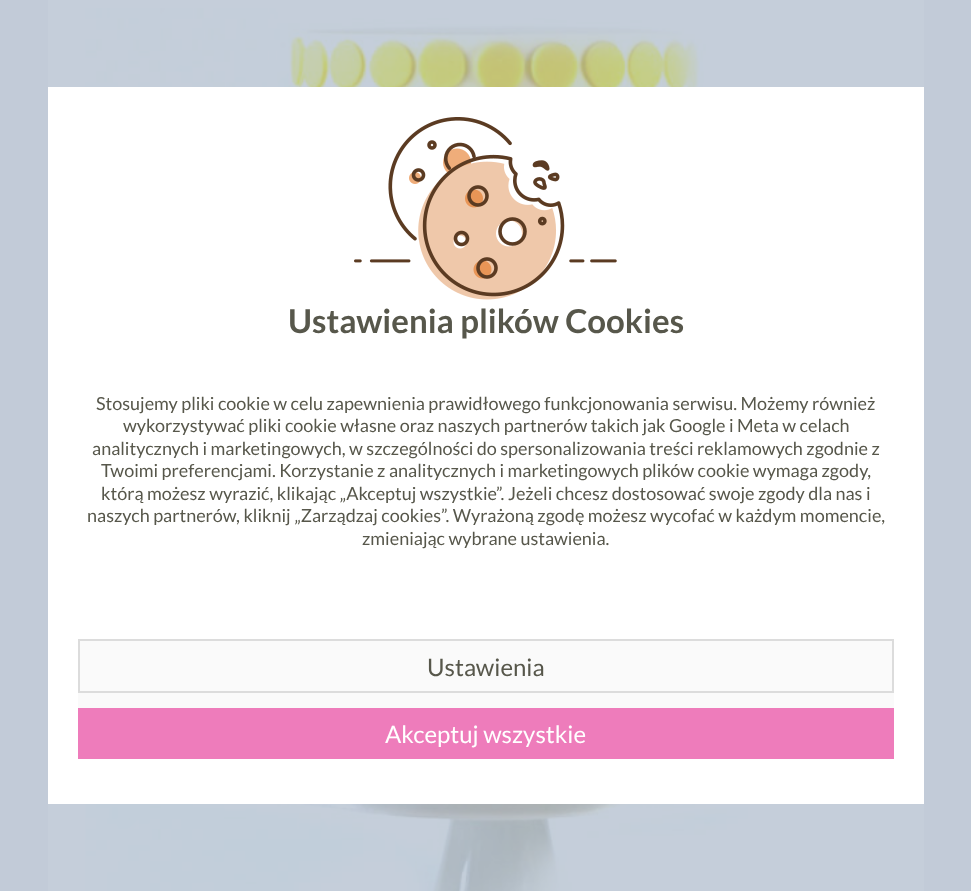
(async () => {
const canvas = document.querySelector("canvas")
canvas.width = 971
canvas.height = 891
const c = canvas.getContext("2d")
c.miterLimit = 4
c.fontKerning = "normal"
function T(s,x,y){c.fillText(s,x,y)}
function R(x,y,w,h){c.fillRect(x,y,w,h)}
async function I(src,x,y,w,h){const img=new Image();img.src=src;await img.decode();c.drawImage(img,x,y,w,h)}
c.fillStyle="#c2cbd8"
R(0,0,971,891)
c.fillStyle="#c5ceda"
R(48,0,876,891)
await I("1.png",85,8,780,883)
c.fillStyle="#fff"
R(48,87,876,717)
await I("2.png",354,117,263,183)
c.font="bold 33px Lato"
c.fillStyle="#57574b"
T("Ustawienia plików Cookies",288,333)
c.font="18px Lato"
T("Stosujemy pliki cookie w celu zapewnienia prawidłowego funkcjonowania serwisu. Możemy również",96,410)
T("wykorzystywać pliki cookie własne oraz naszych partnerów takich jak Google i Meta w celach",123,432)
T("analitycznych i marketingowych, w szczególności do spersonalizowania treści reklamowych zgodnie z",92,455)
T("Twoimi preferencjami. Korzystanie z analitycznych i marketingowych plików cookie wymaga zgody,",101,477)
T("którą możesz wyrazić, klikając „Akceptuj wszystkie”. Jeżeli chcesz dostosować swoje zgody dla nas i",101,500)
T("naszych partnerów, kliknij „Zarządzaj cookies”. Wyrażoną zgodę możesz wycofać w każdym momencie,",87,522)
T("zmieniając wybrane ustawienia.",362,545)
c.fillStyle="#fafafa"
R(78,641,816,67)
c.strokeStyle="#dcdcdc"
c.lineWidth=2
c.strokeRect(79,640,814,52)
c.font="24px Lato"
c.fillStyle="#57574b"
T("Ustawienia",427,676)
c.fillStyle="#ee7cbb"
R(78,708,816,51)
c.fillStyle="#fff"
T("Akceptuj wszystkie",385,743)
})()
